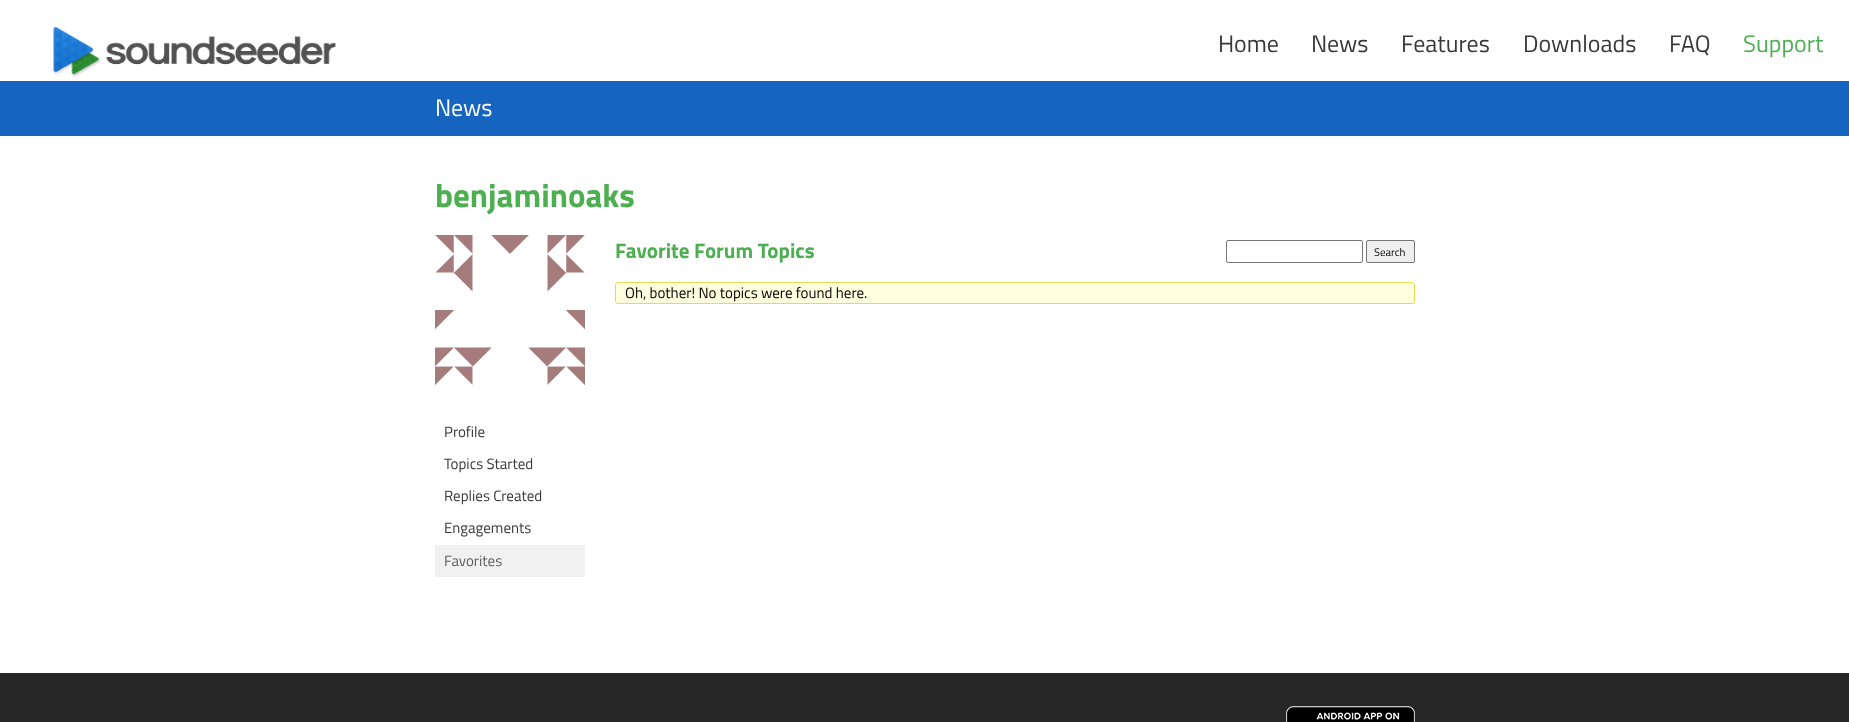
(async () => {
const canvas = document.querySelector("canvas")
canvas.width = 1849
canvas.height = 722
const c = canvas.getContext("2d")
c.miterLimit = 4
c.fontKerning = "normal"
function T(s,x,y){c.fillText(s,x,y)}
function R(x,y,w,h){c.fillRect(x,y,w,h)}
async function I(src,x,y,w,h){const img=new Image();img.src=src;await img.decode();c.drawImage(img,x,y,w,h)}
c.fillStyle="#fff"
R(0,0,1849,722)
await I("1.png",53,26,283,51)
c.font="24px Titillium Web"
c.fillStyle="#383838"
T("Home",1218,52)
T("News",1311,52)
T("Features",1401,52)
T("Downloads",1523,52)
T("FAQ",1669,52)
c.fillStyle="#4caf50"
T("Support",1743,52)
c.fillStyle="#1565c0"
R(0,81,1849,55)
c.fillStyle="#fff"
T("News",435,116)
c.font="bold 33px Titillium Web"
c.fillStyle="#4caf50"
T("benjaminoaks",435,207)
c.font="bold 21px Titillium Web"
T("Favorite Forum Topics",615,258)
c.beginPath()
c.roundRect(1226.5,240.5,136,22,1.5)
c.strokeStyle="#767676"
c.stroke()
c.fillStyle="#efefef"
c.beginPath()
c.roundRect(1366.5,240.5,48,22,1.5)
c.fill()
c.stroke()
c.font="11px Titillium Web"
c.fillStyle="#000"
T("Search",1374,256)
c.fillStyle="#ffffe0"
c.beginPath()
c.roundRect(615.5,282.5,799,21,2.5)
c.fill()
c.strokeStyle="#e6db55"
c.stroke()
c.font="15px Titillium Web"
c.fillStyle="#000"
T("Oh, bother! No topics were found here.",625,298)
await I("2.png",435,235,150,150)
c.fillStyle="#383838"
T("Profile",444,437)
T("Topics Started",444,469)
T("Replies Created",444,501)
T("Engagements",444,533)
c.fillStyle="#f1f1f1"
R(435,545,150,32)
c.fillStyle="#606060"
T("Favorites",444,566)
c.fillStyle="#262626"
R(0,673,1849,49)
await I("3.png",1286,706,129,16)
})()
